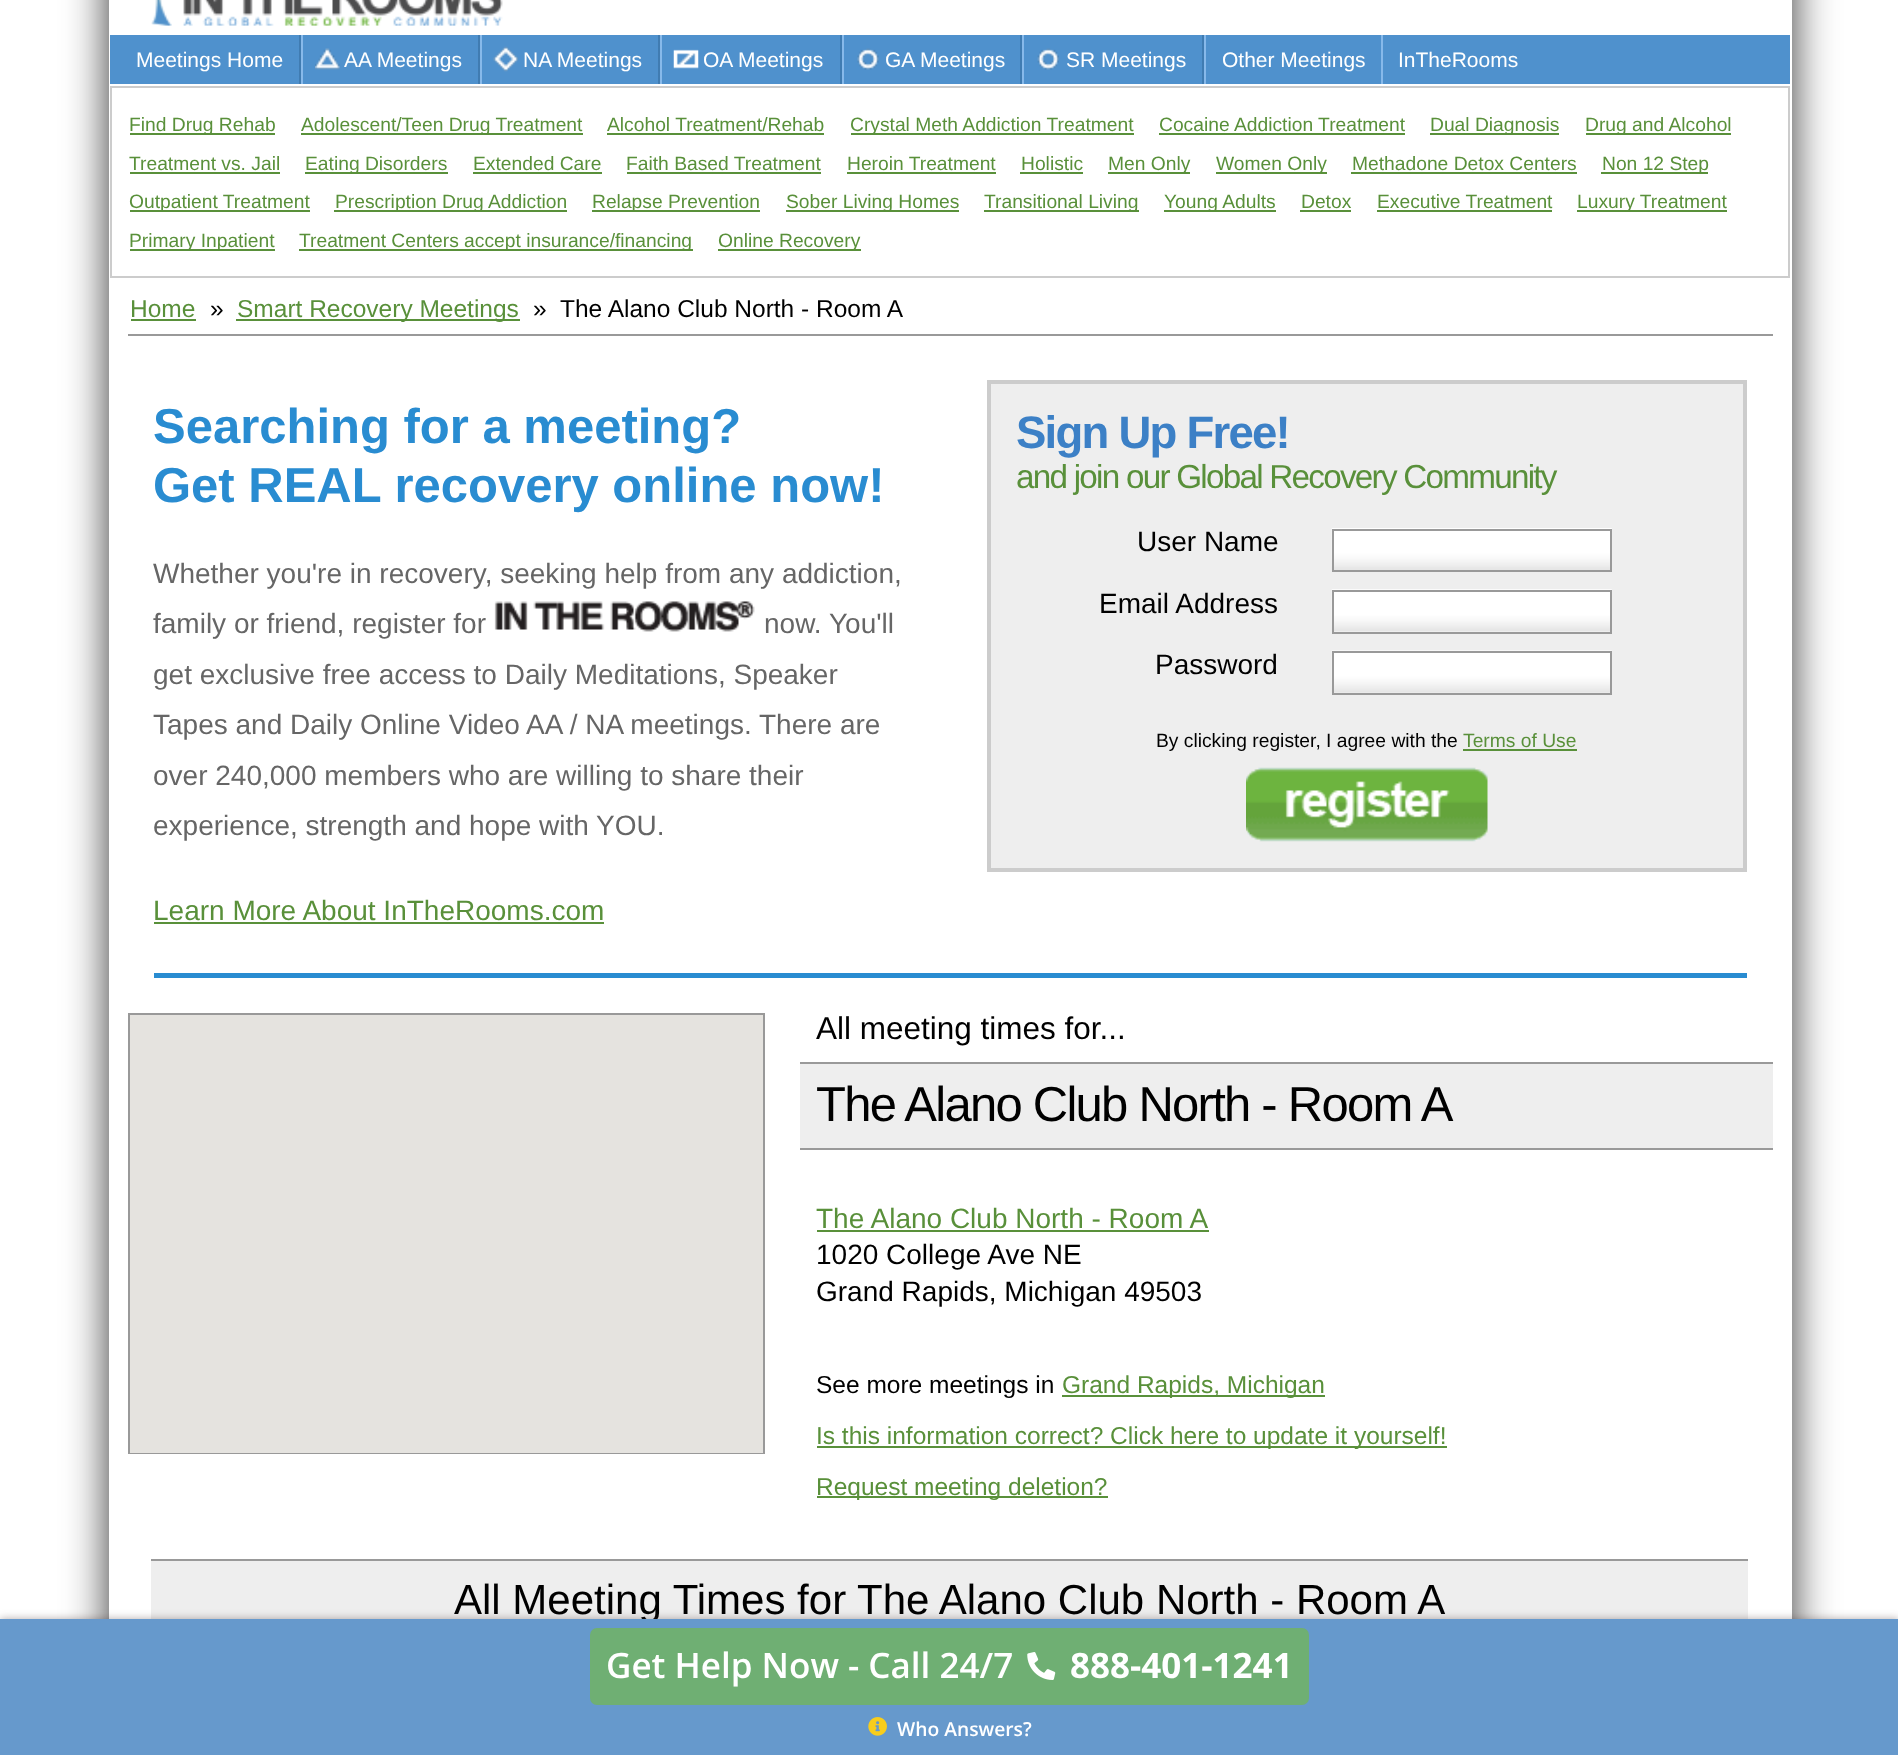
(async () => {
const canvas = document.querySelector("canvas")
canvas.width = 1898
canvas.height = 1755
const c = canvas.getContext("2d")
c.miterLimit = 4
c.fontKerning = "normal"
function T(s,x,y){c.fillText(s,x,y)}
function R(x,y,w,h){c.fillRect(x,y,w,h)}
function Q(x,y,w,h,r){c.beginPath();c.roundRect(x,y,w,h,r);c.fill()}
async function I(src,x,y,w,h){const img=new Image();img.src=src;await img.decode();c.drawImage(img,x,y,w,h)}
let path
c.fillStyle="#fff"
R(0,0,1898,1755)
c.save()
path = new Path2D("M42 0h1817v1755h-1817zm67-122h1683v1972h-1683z")
c.clip(path,"evenodd")
c.fillStyle="#333"
c.filter="blur(22px)"
c.beginPath()
c.rect(109,-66,1683,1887)
c.fill()
c.filter="none"
c.restore()
await I("1.png",151,0,352,26)
c.fillStyle="#4f91cd"
R(110,35,1680,49)
c.fillStyle="#407cb2"
R(299,35,2,49)
c.font="21px Liberation Sans"
c.fillStyle="#fff"
T("Meetings Home",136,67)
await I("2.png",315,48,25,22)
c.fillStyle="#407cb2"
R(478,35,2,49)
c.fillStyle="#87b9ea"
R(301,35,2,49)
c.fillStyle="#fff"
T("AA Meetings",344,67)
await I("3.png",493,46,25,26)
c.fillStyle="#407cb2"
R(658,35,2,49)
c.fillStyle="#87b9ea"
R(480,35,2,49)
c.fillStyle="#fff"
T("NA Meetings",523,67)
await I("4.png",673,49,26,20)
c.fillStyle="#407cb2"
R(840,35,2,49)
c.fillStyle="#87b9ea"
R(660,35,2,49)
c.fillStyle="#fff"
T("OA Meetings",703,67)
await I("5.png",857,48,22,22)
c.fillStyle="#407cb2"
R(1020,35,2,49)
c.fillStyle="#87b9ea"
R(842,35,2,49)
c.fillStyle="#fff"
T("GA Meetings",885,67)
await I("6.png",1037,48,22,22)
c.fillStyle="#407cb2"
R(1202,35,2,49)
c.fillStyle="#87b9ea"
R(1022,35,2,49)
c.fillStyle="#fff"
T("SR Meetings",1066,67)
c.fillStyle="#87b9ea"
R(1204,35,2,49)
c.fillStyle="#fff"
T("Other Meetings",1222,67)
c.fillStyle="#87b9ea"
R(1381,35,2,49)
c.fillStyle="#fff"
T("InTheRooms",1398,67)
c.strokeStyle="#ccc"
c.lineWidth=2
c.strokeRect(111,87,1678,190)
c.fillStyle="#59903a"
R(130,133,145,2)
c.font="19.25px Liberation Sans"
T("Find Drug Rehab",129,131)
R(301,133,282,2)
T("Adolescent/Teen Drug Treatment",301,131)
T("Alcohol Treatment/Rehab",607,131)
R(607,133,217,2)
R(851,133,283,2)
T("Crystal Meth Addiction Treatment",850,131)
T("Cocaine Addiction Treatment",1159,131)
R(1159,133,246,2)
R(1430,133,129,2)
T("Dual Diagnosis",1430,131)
R(1586,133,145,2)
T("Drug and Alcohol",1585,131)
T("Treatment vs. Jail",129,170)
R(130,172,150,2)
R(305,172,143,2)
T("Eating Disorders",305,170)
T("Extended Care",473,170)
R(473,172,129,2)
T("Faith Based Treatment",626,170)
R(627,172,194,2)
T("Heroin Treatment",847,170)
R(847,172,149,2)
T("Holistic",1021,170)
R(1020,172,63,2)
R(1108,172,82,2)
T("Men Only",1108,170)
R(1216,172,111,2)
T("Women Only",1216,170)
T("Methadone Detox Centers",1352,170)
R(1351,172,226,2)
R(1601,172,107,2)
T("Non 12 Step",1602,170)
R(130,210,180,2)
T("Outpatient Treatment",129,208)
R(334,210,233,2)
T("Prescription Drug Addiction",335,208)
R(592,210,168,2)
T("Relapse Prevention",592,208)
R(786,210,173,2)
T("Sober Living Homes",786,208)
R(984,210,155,2)
T("Transitional Living",984,208)
R(1164,210,112,2)
T("Young Adults",1164,208)
T("Detox",1301,208)
R(1300,210,51,2)
T("Executive Treatment",1377,208)
R(1377,210,175,2)
R(1577,210,150,2)
T("Luxury Treatment",1577,208)
R(130,249,145,2)
T("Primary Inpatient",129,247)
R(299,249,394,2)
T("Treatment Centers accept insurance/financing",299,247)
R(718,249,143,2)
T("Online Recovery",718,247)
c.fillStyle="#999"
R(128,334,1645,2)
c.font="24.5px Liberation Sans"
c.fillStyle="#59903a"
T("Home",130,317)
R(131,319,65,2)
c.fillStyle="#000"
T("»",210,317)
c.fillStyle="#59903a"
R(236,319,284,2)
T("Smart Recovery Meetings",237,317)
c.fillStyle="#000"
T("»",533,317)
T("The Alano Club North - Room A",560,317)
c.fillStyle="#298cd1"
R(154,973,1593,5)
c.font="bold 49px Liberation Sans"
T("Searching for a meeting?",153,443)
T("Get REAL recovery online now!",153,502)
c.font="28px Liberation Sans"
c.fillStyle="#666"
T("Whether you're in recovery, seeking help from any addiction,",153,583)
T("family or friend, register for",153,633)
await I("7.png",494,601,261,31)
T("now.",764,633)
T("You'll",829,633)
T("get exclusive free access to Daily Meditations, Speaker",153,684)
T("Tapes and Daily Online Video AA / NA meetings.",153,734)
T("There are",759,734)
T("over 240,000 members who are willing to share their",153,785)
T("experience, strength and hope with YOU.",153,835)
c.fillStyle="#59903a"
T("Learn More About InTheRooms.com",153,920)
R(154,922,450,2)
c.fillStyle="#eee"
c.beginPath()
c.rect(989,382,756,488)
c.fill()
c.lineWidth=4
c.stroke()
c.letterSpacing="-1.75px"
c.font="bold 45.5px Liberation Sans"
c.fillStyle="#3c80c6"
T("Sign Up Free!",1016,448)
c.font="33.25px Liberation Sans"
c.fillStyle="#59903a"
T("and join our Global Recovery Community",1016,488)
c.letterSpacing="0px"
c.font="28px Liberation Sans"
c.fillStyle="#000"
T("User Name",1137,551)
await I("8.png",1331,528,281,42)
c.strokeStyle="#999"
c.lineWidth=2
c.strokeRect(1333,530,278,41)
T("Email Address",1099,613)
await I("9.png",1331,589,281,42)
c.strokeRect(1333,591,278,42)
T("Password",1155,674)
await I("10.png",1331,650,281,43)
c.strokeRect(1333,652,278,42)
c.font="19.25px Liberation Sans"
T("By clicking register, I agree with the",1156,747)
c.fillStyle="#59903a"
T("Terms of Use",1463,747)
R(1463,749,114,2)
await I("11.png",1246,767,242,75)
c.strokeRect(129,1014,635,439)
c.fillStyle="#e5e3df"
R(130,1015,633,438)
c.font="31.5px Liberation Sans"
c.fillStyle="#000"
T("All meeting times for...",816,1039)
c.fillStyle="#eee"
R(800,1064,973,84)
c.fillStyle="#999"
R(800,1062,973,2)
R(800,1148,973,2)
c.letterSpacing="-1.75px"
c.font="49px Liberation Sans"
c.fillStyle="#000"
T("The Alano Club North - Room A",816,1121)
c.letterSpacing="0px"
c.font="28px Liberation Sans"
c.fillStyle="#59903a"
T("The Alano Club North - Room A",816,1228)
R(817,1230,392,2)
c.fillStyle="#000"
T("1020 College Ave NE",816,1264)
T("Grand Rapids, Michigan 49503",816,1301)
c.font="24.5px Liberation Sans"
T("See more meetings in",816,1393)
c.fillStyle="#59903a"
R(1062,1395,263,2)
T("Grand Rapids, Michigan",1062,1393)
R(817,1446,630,2)
T("Is this information correct? Click here to update it yourself!",816,1444)
R(817,1496,291,2)
T("Request meeting deletion?",816,1495)
c.fillStyle="#eee"
R(151,1561,1597,58)
c.fillStyle="#999"
R(151,1559,1597,2)
c.font="42px Liberation Sans"
c.fillStyle="#000"
T("All Meeting Times for The Alano Club North - Room A",454,1614)
c.fillStyle="#3b272766"
c.filter="blur(4.5px)"
c.beginPath()
c.rect(0,1619,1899,136)
c.fill()
c.filter="none"
c.fillStyle="#69c"
R(0,1619,1898,136)
c.fillStyle="#6faf73"
Q(590,1628,719,77,7)
c.font="600 35px Open Sans"
c.fillStyle="#fff"
T("Get Help Now - Call 24/7",606,1678)
await I("12.png",1027,1652,29,28)
c.font="bold 35px Open Sans"
T("888-401-1241",1070,1678)
await I("13.png",868,1717,19,19)
c.font="600 19.25px Open Sans"
T("Who Answers?",897,1736)
})()
